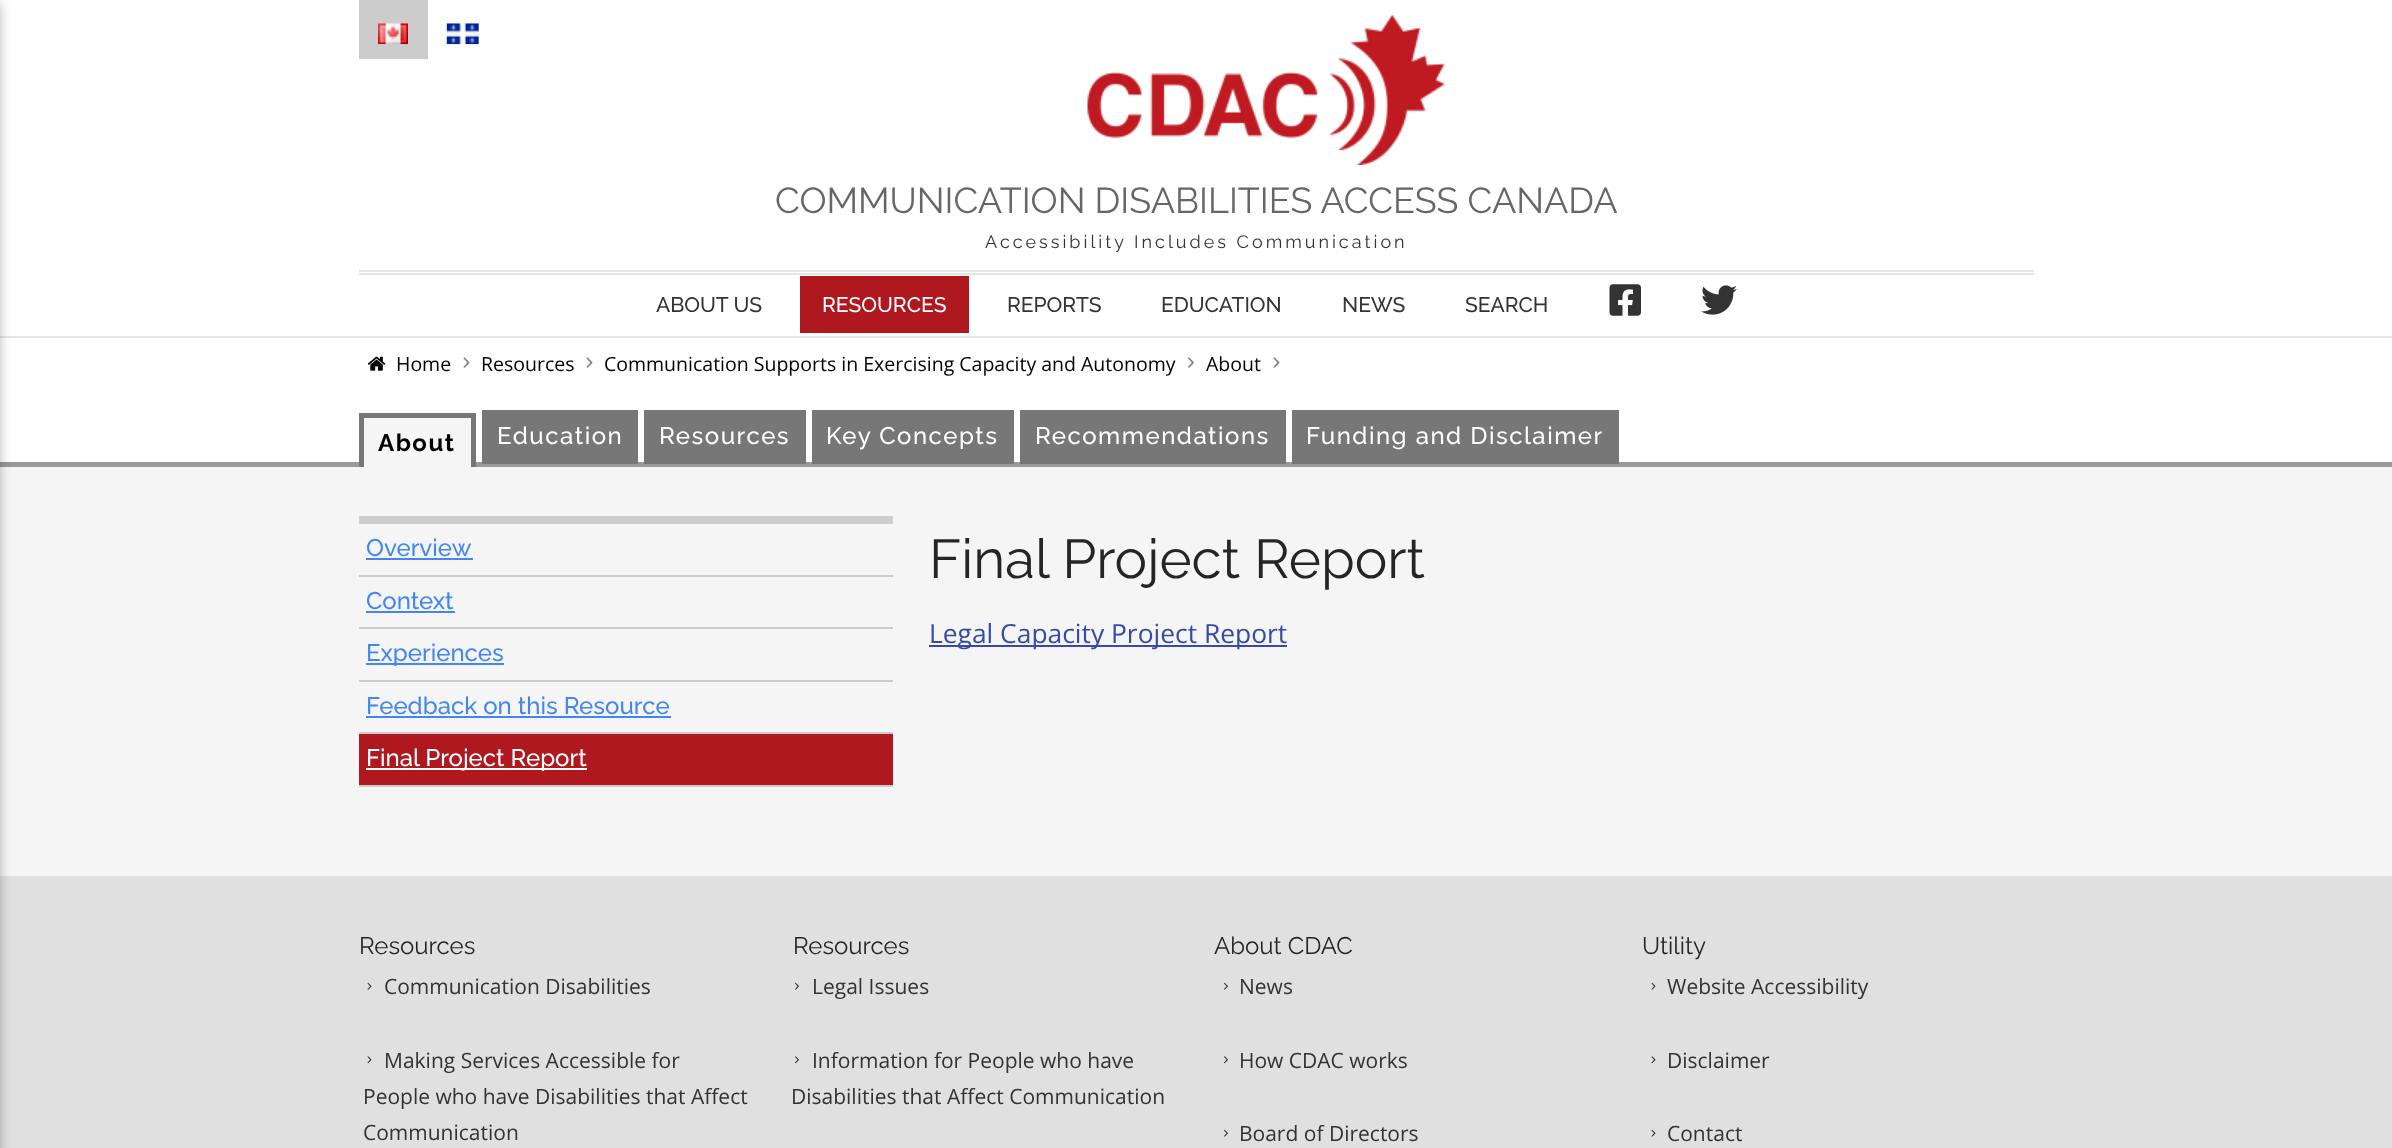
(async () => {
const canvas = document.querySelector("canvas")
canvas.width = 2392
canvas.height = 1148
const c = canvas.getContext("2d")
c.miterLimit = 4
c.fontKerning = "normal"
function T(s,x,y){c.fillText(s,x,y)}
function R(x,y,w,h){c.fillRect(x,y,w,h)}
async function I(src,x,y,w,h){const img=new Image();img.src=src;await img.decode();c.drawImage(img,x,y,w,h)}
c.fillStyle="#fff"
R(0,0,2392,1148)
c.fillStyle="#e6e6e6"
R(0,336,2392,2)
c.fillStyle="#f5f5f5"
R(0,467,2392,409)
c.fillStyle="#999"
R(0,462,2392,5)
c.fillStyle="#e0e0e0"
R(0,876,2392,272)
c.fillStyle="#0000001f"
c.filter="blur(7.5px)"
c.beginPath()
c.rect(-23,3,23,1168)
c.fill()
c.filter="none"
c.fillStyle="#00000029"
c.filter="blur(4px)"
c.beginPath()
c.rect(-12,3,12,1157)
c.fill()
c.filter="none"
c.fillStyle="#ccc"
R(359,0,69,59)
await I("1.png",378,23,30,22)
await I("2.png",446,23,33,22)
c.fillStyle="#e6e6e6"
R(359,270,1675,2)
R(359,273,1675,2)
await I("3.png",1087,15,358,150)
c.font="36px Raleway"
c.fillStyle="#666"
T("COMMUNICATION DISABILITIES ACCESS CANADA",775,213)
c.letterSpacing="3px"
c.font="18px Raleway"
c.fillStyle="#333"
T("Accessibility Includes Communication",985,248)
c.letterSpacing="0px"
c.font="500 21px Raleway"
T("ABOUT US",656,312)
c.fillStyle="#af181f"
R(800,276,169,57)
c.fillStyle="#fff"
T("RESOURCES",822,312)
c.fillStyle="#333"
T("REPORTS",1007,312)
T("EDUCATION",1161,312)
T("NEWS",1342,312)
T("SEARCH",1465,312)
await I("4.png",1609,284,32,32)
await I("5.png",1701,285,36,30)
await I("6.png",367,356,19,15)
c.font="19.5px Open Sans"
c.fillStyle="#000"
T("Home",396,371)
await I("7.png",463,357,7,11)
T("Resources",481,371)
await I("7.png",586,357,7,11)
T("Communication Supports in Exercising Capacity and Autonomy",604,371)
await I("8.png",1188,357,6,11)
T("About",1206,371)
await I("7.png",1273,357,7,11)
c.fillStyle="#f5f5f5"
R(364,418,107,49)
c.fillStyle="#777"
R(359,413,117,5)
R(471,413,5,54)
R(359,413,5,54)
c.letterSpacing="1.5px"
c.font="bold 24px Raleway"
c.fillStyle="#000"
T("About",378,451)
c.fillStyle="#777"
R(482,410,156,54)
c.font="500 24px Raleway"
c.fillStyle="#fff"
T("Education",497,444)
c.fillStyle="#777"
R(644,410,162,54)
c.fillStyle="#fff"
T("Resources",659,444)
c.fillStyle="#777"
R(812,410,202,54)
c.fillStyle="#fff"
T("Key Concepts",826,444)
c.fillStyle="#777"
R(1020,410,266,54)
c.fillStyle="#fff"
T("Recommendations",1035,444)
c.fillStyle="#777"
R(1292,410,327,54)
c.fillStyle="#fff"
T("Funding and Disclaimer",1306,444)
c.fillStyle="#ccc"
R(359,516,534,8)
R(359,575,534,2)
c.letterSpacing="0px"
c.fillStyle="#4286f4"
T("Overview",366,556)
R(366,558,107,2)
c.fillStyle="#ccc"
R(359,627,534,2)
c.fillStyle="#4286f4"
T("Context",366,609)
R(366,611,89,2)
c.fillStyle="#ccc"
R(359,680,534,2)
c.fillStyle="#4286f4"
R(366,663,138,2)
T("Experiences",366,661)
c.fillStyle="#ccc"
R(359,732,534,2)
c.fillStyle="#4286f4"
T("Feedback on this Resource",366,714)
R(366,716,305,2)
c.fillStyle="#af181f"
R(359,734,534,51)
c.fillStyle="#ccc"
R(359,785,534,2)
c.fillStyle="#fff"
R(366,768,221,2)
T("Final Project Report",366,766)
c.font="54.75px Raleway"
c.fillStyle="#252525"
T("Final Project Report",929,578)
c.fillStyle="#374aa9"
R(929,645,358,2)
c.font="26.4px Open Sans"
T("Legal Capacity Project Report",929,643)
c.font="24px Raleway"
c.fillStyle="#252525"
T("Resources",359,954)
await I("9.png",367,982,5,8)
c.font="21px Open Sans"
c.fillStyle="#333"
T("Communication Disabilities",384,994)
await I("10.png",367,1056,5,8)
T("Making Services Accessible for",384,1068)
T("People who have Disabilities that Affect",363,1104)
T("Communication",363,1140)
c.font="24px Raleway"
c.fillStyle="#252525"
T("Resources",793,954)
await I("11.png",795,982,4,8)
c.font="21px Open Sans"
c.fillStyle="#333"
T("Legal Issues",812,994)
await I("12.png",795,1056,4,8)
T("Information for People who have",812,1068)
T("Disabilities that Affect Communication",791,1104)
c.font="24px Raleway"
c.fillStyle="#252525"
T("About CDAC",1214,954)
await I("11.png",1224,982,4,8)
c.font="21px Open Sans"
c.fillStyle="#333"
T("News",1239,994)
await I("12.png",1224,1056,4,8)
T("How CDAC works",1239,1068)
await I("11.png",1224,1129,4,8)
T("Board of Directors",1239,1141)
c.font="24px Raleway"
c.fillStyle="#252525"
T("Utility",1642,954)
await I("9.png",1651,982,5,8)
c.font="21px Open Sans"
c.fillStyle="#333"
T("Website Accessibility",1667,994)
await I("10.png",1651,1056,5,8)
T("Disclaimer",1667,1068)
await I("9.png",1651,1129,5,8)
T("Contact",1667,1141)
})()
